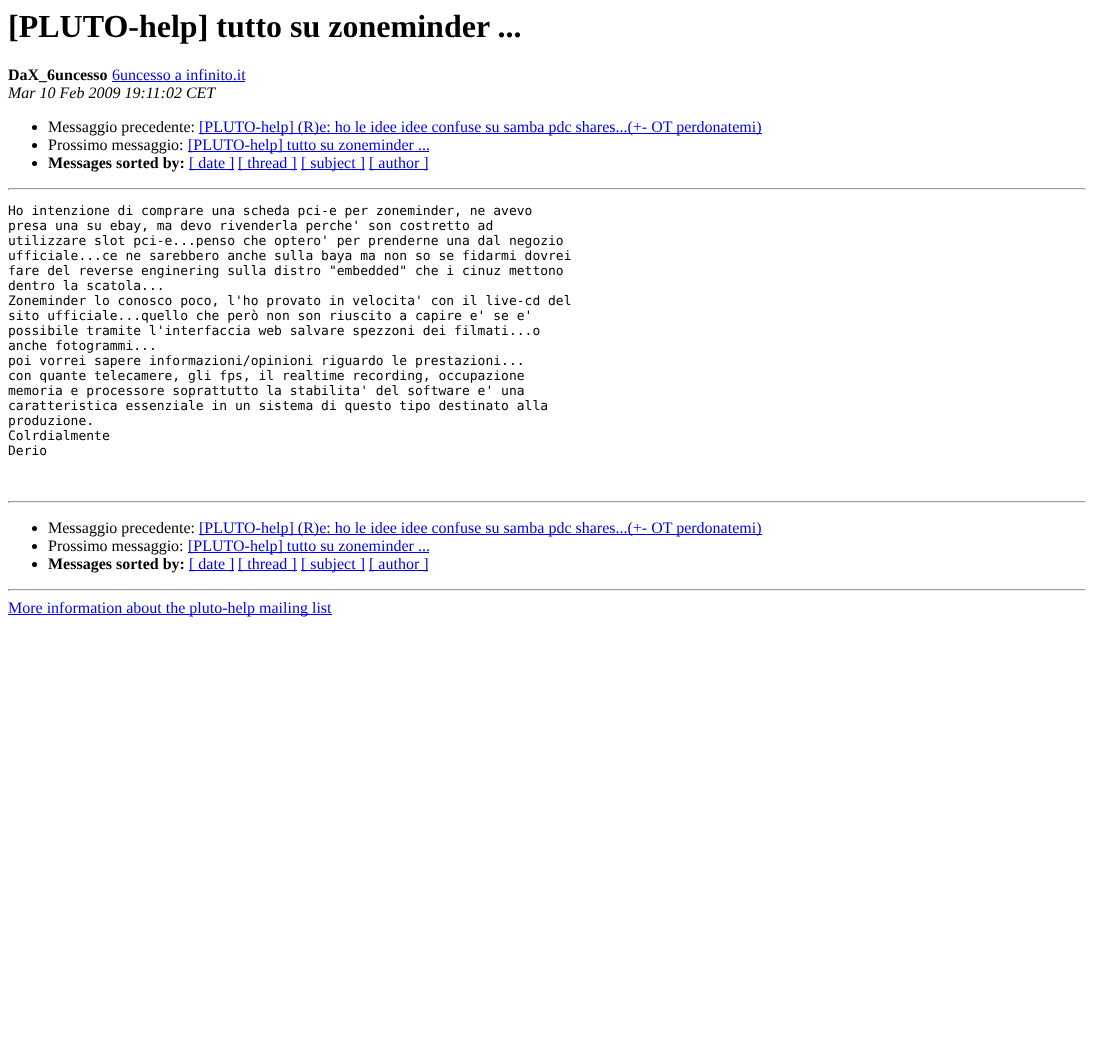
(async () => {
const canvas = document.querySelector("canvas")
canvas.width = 1094
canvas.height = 1054
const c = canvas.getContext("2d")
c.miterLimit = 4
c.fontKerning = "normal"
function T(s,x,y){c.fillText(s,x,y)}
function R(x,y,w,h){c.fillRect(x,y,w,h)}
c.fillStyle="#fff"
R(0,0,1094,1054)
c.font="bold 32px Liberation Serif"
c.fillStyle="#000"
T("[PLUTO-help] tutto su zoneminder ...",8,37)
c.font="bold 16px Liberation Serif"
T("DaX_6uncesso",8,80)
c.font="16px Liberation Serif"
c.fillStyle="#00e"
T("6uncesso a infinito.it",112,80)
R(112,81,133,1)
c.font="italic 16px Liberation Serif"
c.fillStyle="#000"
T("Mar 10 Feb 2009 19:11:02 CET",8,98)
c.beginPath()
c.arc(34.5,127.5,2.5,0,7)
c.fill()
c.font="16px Liberation Serif"
T("Messaggio precedente:",48,132)
c.fillStyle="#00e"
R(199,133,563,1)
T("[PLUTO-help] (R)e: ho le idee idee confuse su samba pdc shares...(+- OT perdonatemi)",199,132)
c.fillStyle="#000"
c.beginPath()
c.arc(34.5,145.5,2.5,0,7)
c.fill()
T("Prossimo messaggio:",48,150)
c.fillStyle="#00e"
R(188,151,241,1)
T("[PLUTO-help] tutto su zoneminder ...",188,150)
c.fillStyle="#000"
c.beginPath()
c.arc(34.5,163.5,2.5,0,7)
c.fill()
c.font="bold 16px Liberation Serif"
T("Messages sorted by:",48,168)
c.fillStyle="#00e"
R(189,169,45,1)
c.font="16px Liberation Serif"
T("[ date ]",189,168)
R(238,169,59,1)
T("[ thread ]",238,168)
R(301,169,64,1)
T("[ subject ]",301,168)
R(369,169,59,1)
T("[ author ]",369,168)
c.fillStyle="#9f9f9f"
R(8,188,1078,1)
c.fillStyle="#eee"
R(1085,188,1,2)
R(8,189,1078,1)
c.fillStyle="#9f9f9f"
R(8,188,1,2)
c.font="13px DejaVu Sans Mono"
c.fillStyle="#000"
T("Ho intenzione di comprare una scheda pci-e per zoneminder, ne avevo",8,215)
T("presa una su ebay, ma devo rivenderla perche' son costretto ad",8,230)
T("utilizzare slot pci-e...penso che optero' per prenderne una dal negozio",8,245)
T("ufficiale...ce ne sarebbero anche sulla baya ma non so se fidarmi dovrei",8,260)
T("fare del reverse enginering sulla distro \"embedded\" che i cinuz mettono",8,275)
T("dentro la scatola...",8,290)
T("Zoneminder lo conosco poco, l'ho provato in velocita' con il live-cd del",8,305)
T("sito ufficiale...quello che però non son riuscito a capire e' se e'",8,320)
T("possibile tramite l'interfaccia web salvare spezzoni dei filmati...o",8,335)
T("anche fotogrammi...",8,350)
T("poi vorrei sapere informazioni/opinioni riguardo le prestazioni...",8,365)
T("con quante telecamere, gli fps, il realtime recording, occupazione",8,380)
T("memoria e processore soprattutto la stabilita' del software e' una",8,395)
T("caratteristica essenziale in un sistema di questo tipo destinato alla",8,410)
T("produzione.",8,425)
T("Colrdialmente",8,440)
T("Derio",8,455)
c.fillStyle="#9f9f9f"
R(8,501,1078,1)
c.fillStyle="#eee"
R(1085,501,1,2)
R(8,502,1078,1)
c.fillStyle="#9f9f9f"
R(8,501,1,2)
c.fillStyle="#000"
c.beginPath()
c.arc(34.5,528.5,2.5,0,7)
c.fill()
c.font="16px Liberation Serif"
T("Messaggio precedente:",48,533)
c.fillStyle="#00e"
R(199,534,563,1)
T("[PLUTO-help] (R)e: ho le idee idee confuse su samba pdc shares...(+- OT perdonatemi)",199,533)
c.fillStyle="#000"
c.beginPath()
c.arc(34.5,546.5,2.5,0,7)
c.fill()
T("Prossimo messaggio:",48,551)
c.fillStyle="#00e"
R(188,552,241,1)
T("[PLUTO-help] tutto su zoneminder ...",188,551)
c.fillStyle="#000"
c.beginPath()
c.arc(34.5,564.5,2.5,0,7)
c.fill()
c.font="bold 16px Liberation Serif"
T("Messages sorted by:",48,569)
c.fillStyle="#00e"
R(189,570,45,1)
c.font="16px Liberation Serif"
T("[ date ]",189,569)
R(238,570,59,1)
T("[ thread ]",238,569)
R(301,570,64,1)
T("[ subject ]",301,569)
R(369,570,59,1)
T("[ author ]",369,569)
c.fillStyle="#9f9f9f"
R(8,589,1078,1)
c.fillStyle="#eee"
R(1085,589,1,2)
R(8,590,1078,1)
c.fillStyle="#9f9f9f"
R(8,589,1,2)
c.fillStyle="#00e"
R(8,614,324,1)
T("More information about the pluto-help mailing list",8,613)
})()
